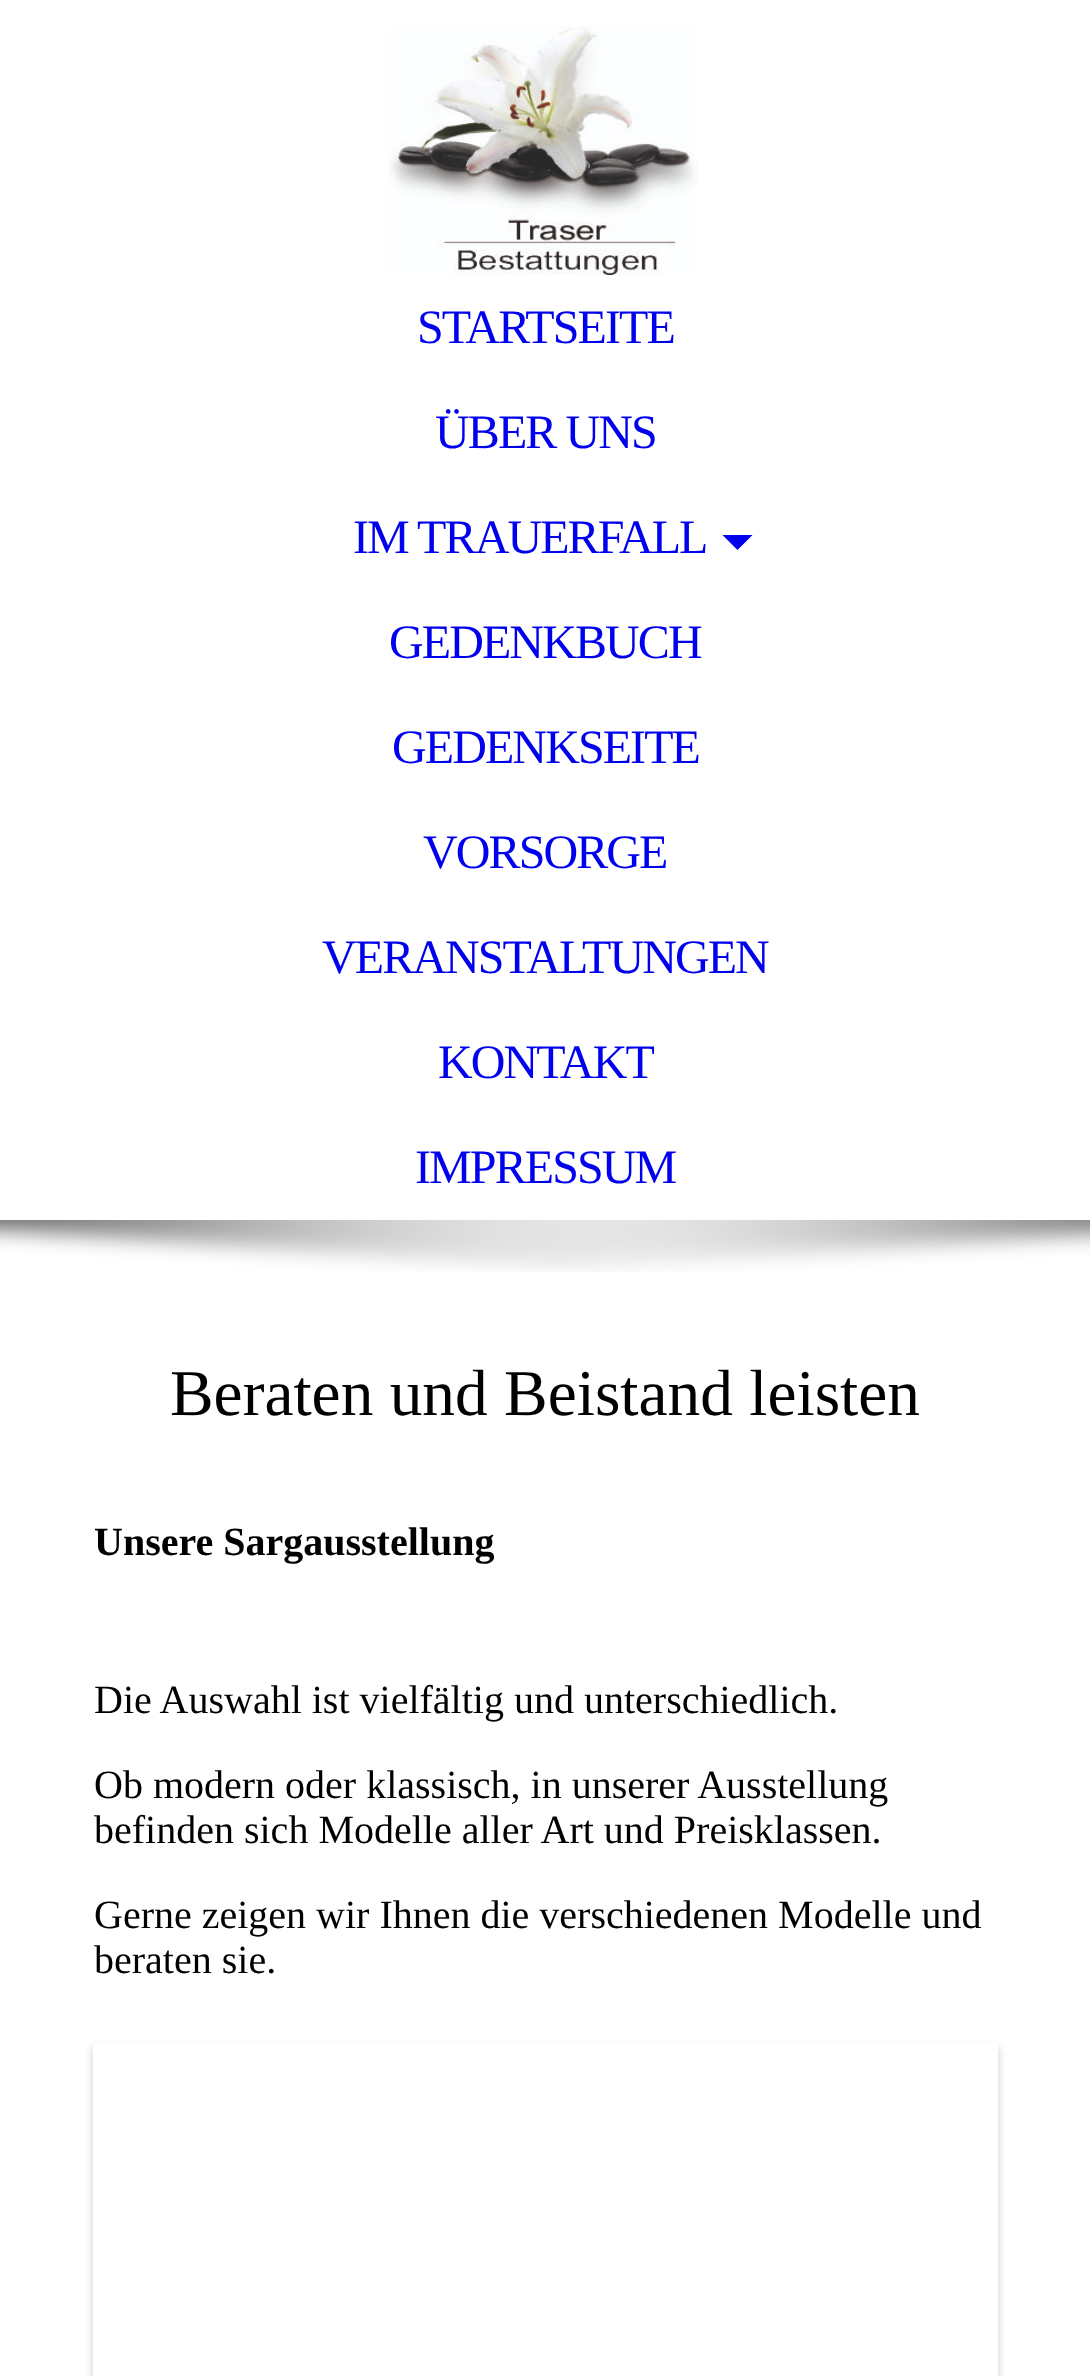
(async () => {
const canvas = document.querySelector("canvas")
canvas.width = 1090
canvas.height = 2376
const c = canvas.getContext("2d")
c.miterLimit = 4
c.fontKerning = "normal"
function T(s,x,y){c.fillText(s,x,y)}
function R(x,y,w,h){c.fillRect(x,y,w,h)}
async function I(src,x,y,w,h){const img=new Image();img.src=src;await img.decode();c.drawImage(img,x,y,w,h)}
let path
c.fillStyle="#fff"
R(0,0,1090,2376)
await I("1.png",388,26,310,249)
c.letterSpacing="-1.9px"
c.font="48px Liberation Serif"
c.fillStyle="#00e"
T("STARTSEITE",417,343)
T("ÜBER UNS",435,448)
T("IM TRAUERFALL",353,553)
path = new Path2D("M722.5 535h30l-15 15z")
c.fill(path)
T("GEDENKBUCH",389,658)
T("GEDENKSEITE",392,763)
T("VORSORGE",423,868)
T("VERANSTALTUNGEN",322,973)
T("KONTAKT",438,1078)
T("IMPRESSUM",415,1183)
await I("2.png",0,1220,1090,52)
c.letterSpacing="0px"
c.font="65.4px Liberation Serif"
c.fillStyle="#000"
T("Beraten und Beistand leisten",170,1415)
c.font="bold 40px Liberation Serif"
T("Unsere Sargausstellung",94,1555)
c.font="40px Liberation Serif"
T("Die Auswahl ist vielfältig und unterschiedlich.",94,1713)
T("Ob modern oder klassisch, in unserer Ausstellung",94,1798)
T("befinden sich Modelle aller Art und Preisklassen.",94,1843)
T("Gerne zeigen wir Ihnen die verschiedenen Modelle und",94,1928)
T("beraten sie.",94,1973)
c.save()
path = new Path2D("M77 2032h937v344h-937zm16 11h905v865h-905z")
c.clip(path,"evenodd")
c.fillStyle="#ccc"
c.filter="blur(5px)"
c.beginPath()
c.rect(93,2048,905,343)
c.fill()
c.filter="none"
c.restore()
})()
